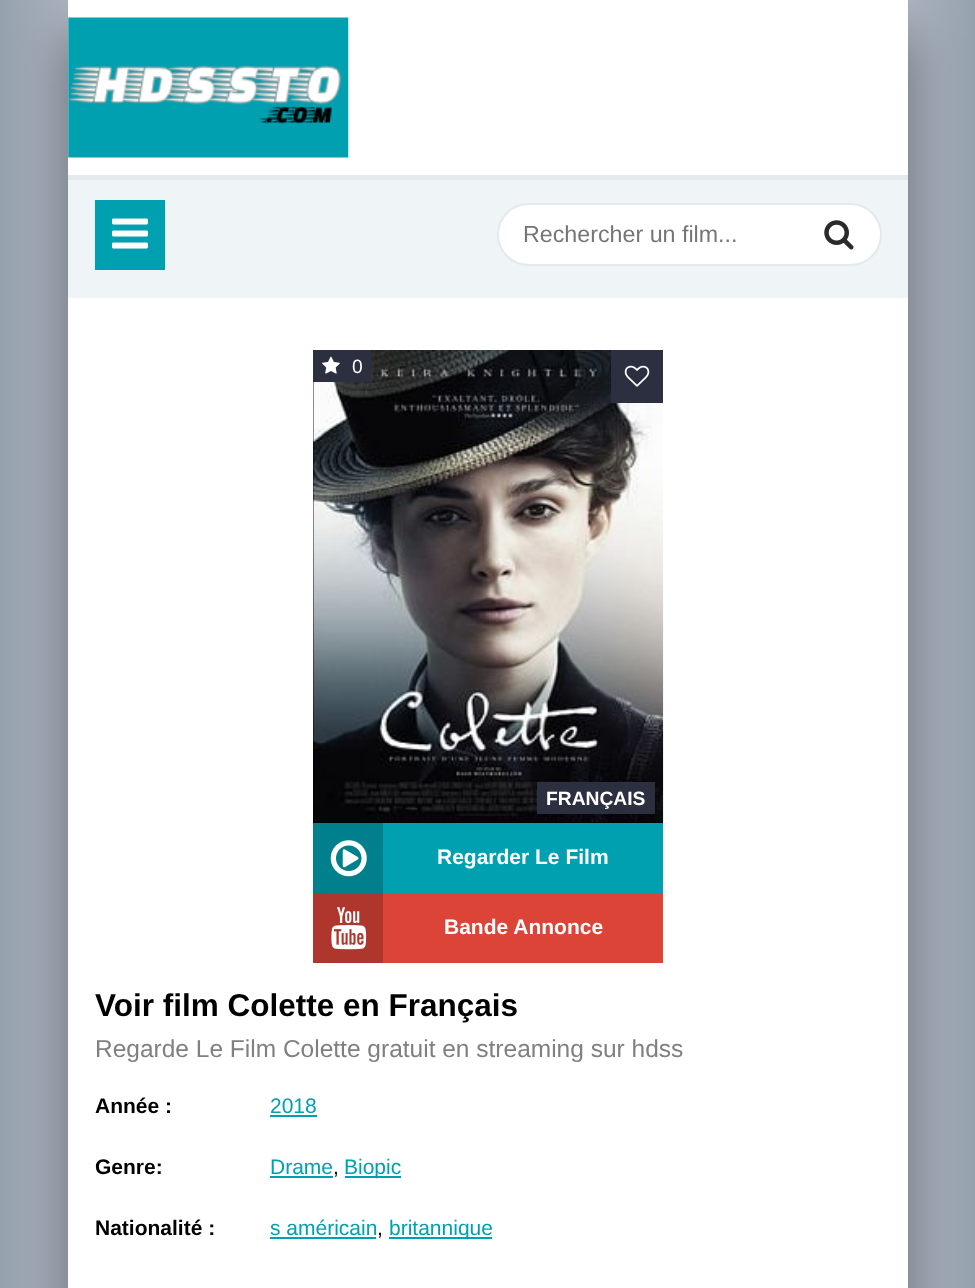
(async () => {
const canvas = document.querySelector("canvas")
canvas.width = 975
canvas.height = 1288
const c = canvas.getContext("2d")
c.miterLimit = 4
c.fontKerning = "normal"
function T(s,x,y){c.fillText(s,x,y)}
function R(x,y,w,h){c.fillRect(x,y,w,h)}
async function I(src,x,y,w,h){const img=new Image();img.src=src;await img.decode();c.drawImage(img,x,y,w,h)}
let gradient
c.fillStyle="#fff"
R(0,0,975,1288)
gradient = c.createLinearGradient(0,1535,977,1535)
gradient.addColorStop(0,"#96a1ae")
gradient.addColorStop(.3,"#f0f3f8")
gradient.addColorStop(.7,"#f0f3f8")
gradient.addColorStop(1,"#96a1ae")
c.fillStyle = gradient
R(0,0,975,1288)
c.fillStyle="#00000066"
c.filter="blur(26px)"
c.beginPath()
c.rect(68,35,840,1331)
c.fill()
c.filter="none"
c.fillStyle="#fff"
R(68,0,840,1288)
await I("1.png",68,17,281,141)
c.fillStyle="#eff4f7"
R(68,180,840,118)
c.fillStyle="#e4e9ec"
R(68,175,840,5)
c.fillStyle="#00a0b0"
R(95,200,70,70)
await I("2.png",112,218,36,31)
c.fillStyle="#fff"
c.beginPath()
c.roundRect(498,204,383,61,30.5)
c.fill()
c.strokeStyle="#e4e9ec"
c.lineWidth=2
c.stroke()
c.font="23.25px Liberation Sans"
c.fillStyle="#757575"
T("Rechercher un film...",523,242)
await I("3.png",824,220,30,30)
c.fillStyle="#000"
R(313,382,350,441)
await I("4.png",313,350,351,473)
c.fillStyle="#2c2f40"
R(313,350,58,32)
await I("5.png",322,356,18,18)
c.font="19.25px Liberation Sans"
c.fillStyle="#fff"
T("0",352,373)
c.fillStyle="#2c2f40"
R(611,350,52,53)
await I("6.png",624,365,26,22)
R(537,782,118,32)
c.font="bold 19.25px Liberation Sans"
c.fillStyle="#fff"
T("FRANÇAIS",546,805)
c.fillStyle="#00a0b0"
R(383,823,280,70)
c.fillStyle="#00808d"
R(313,823,70,70)
await I("7.png",330,840,37,37)
c.font="bold 21px Liberation Sans"
c.fillStyle="#fff"
T("Regarder Le Film",437,864)
c.fillStyle="#db4437"
R(383,893,280,70)
c.fillStyle="#af362c"
R(313,893,70,70)
await I("8.png",331,907,36,43)
c.fillStyle="#fff"
T("Bande Annonce",444,934)
c.font="bold 31.5px Liberation Sans"
c.fillStyle="#000"
T("Voir film Colette en Français",95,1016)
c.font="24.5px Liberation Sans"
c.fillStyle="#808080"
T("Regarde Le Film Colette gratuit en streaming sur hdss",95,1057)
c.font="bold 21px Liberation Sans"
c.fillStyle="#000"
T("Année :",95,1113)
c.font="21px Liberation Sans"
c.fillStyle="#00a0b0"
T("2018",270,1113)
R(270,1115,47,2)
c.font="bold 21px Liberation Sans"
c.fillStyle="#000"
T("Genre:",95,1174)
c.font="21px Liberation Sans"
c.fillStyle="#00a0b0"
T("Drame",270,1174)
R(270,1176,63,2)
c.fillStyle="#000"
T(",",333,1174)
c.fillStyle="#00a0b0"
R(345,1176,56,2)
T("Biopic",344,1174)
c.font="bold 21px Liberation Sans"
c.fillStyle="#000"
T("Nationalité :",95,1235)
c.font="21px Liberation Sans"
c.fillStyle="#00a0b0"
T("s américain",270,1235)
R(270,1237,106,2)
c.fillStyle="#000"
T(",",377,1235)
c.fillStyle="#00a0b0"
R(389,1237,103,2)
T("britannique",389,1235)
})()
